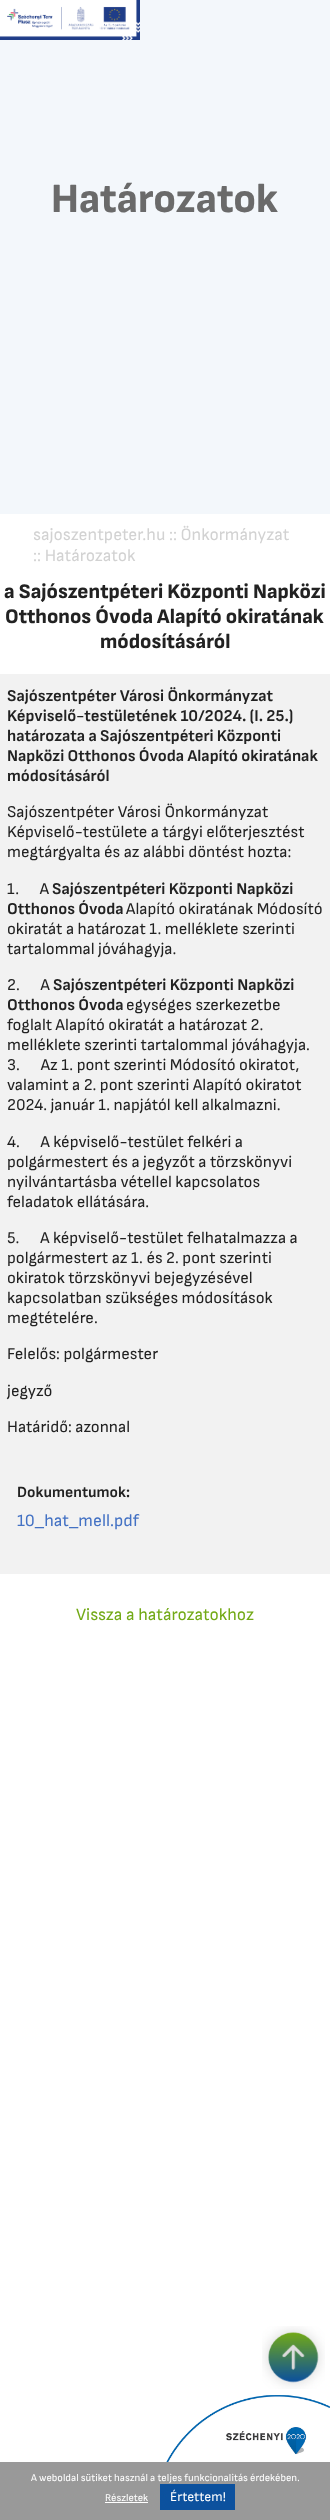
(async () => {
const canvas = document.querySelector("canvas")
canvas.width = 330
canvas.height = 2520
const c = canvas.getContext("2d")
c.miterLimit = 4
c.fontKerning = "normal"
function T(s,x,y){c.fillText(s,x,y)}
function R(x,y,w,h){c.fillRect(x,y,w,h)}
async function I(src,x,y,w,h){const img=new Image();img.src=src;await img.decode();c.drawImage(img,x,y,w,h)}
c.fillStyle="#fff"
R(0,0,330,2520)
c.fillStyle="#f3f7fb"
R(0,0,330,514)
await I("1.png",0,0,140,40)
c.font="800 41.5px Sofia Sans"
c.fillStyle="#6a6a6a"
T("Határozatok",51,212)
c.font="17.3px Sofia Sans"
c.fillStyle="#d2d2d2"
T("sajoszentpeter.hu :: Önkormányzat",33,540)
T(":: Határozatok",33,561)
c.font="800 20.75px Sofia Sans"
c.fillStyle="#222"
T("a Sajószentpéteri Központi Napközi",4,598)
T("Otthonos Óvoda Alapító okiratának",5,623)
T("módosításáról",100,648)
c.fillStyle="#f2f2f2"
R(0,674,330,900)
c.font="bold 16.5px Sofia Sans"
c.fillStyle="#222"
T("Sajószentpéter Városi Önkormányzat",7,701)
T("Képviselő-testületének 10/2024. (I. 25.)",7,721)
T("határozata a Sajószentpéteri Központi",7,741)
T("Napközi Otthonos Óvoda Alapító okiratának",7,761)
T("módosításáról",7,781)
c.font="16.5px Sofia Sans"
T("Sajószentpéter Városi Önkormányzat",7,817)
T("Képviselő-testülete a tárgyi előterjesztést",7,837)
T("megtárgyalta és az alábbi döntést hozta:",7,857)
T("1.      A",7,894)
c.font="bold 16.5px Sofia Sans"
T("Sajószentpéteri Központi Napközi",52,894)
T("Otthonos Óvoda",7,914)
c.font="16.5px Sofia Sans"
T("Alapító okiratának Módosító",126,914)
T("okiratát a határozat 1. melléklete szerinti",7,934)
T("tartalommal jóváhagyja.",7,954)
T("2.      A",7,990)
c.font="bold 16.5px Sofia Sans"
T("Sajószentpéteri Központi Napközi",53,990)
T("Otthonos Óvoda",7,1010)
c.font="16.5px Sofia Sans"
T("egységes szerkezetbe",126,1010)
T("foglalt Alapító okiratát a határozat 2.",7,1030)
T("melléklete szerinti tartalommal jóváhagyja.",7,1050)
T("3.      Az 1. pont szerinti Módosító okiratot,",7,1070)
T("valamint a 2. pont szerinti Alapító okiratot",7,1090)
T("2024. január 1. napjától kell alkalmazni.",7,1110)
T("4.      A képviselő-testület felkéri a",7,1147)
T("polgármestert és a jegyzőt a törzskönyvi",7,1167)
T("nyilvántartásba vétellel kapcsolatos",7,1187)
T("feladatok ellátására.",7,1207)
T("5.      A képviselő-testület felhatalmazza a",7,1243)
T("polgármestert az 1. és 2. pont szerinti",7,1263)
T("okiratok törzskönyvi bejegyzésével",7,1283)
T("kapcsolatban szükséges módosítások",7,1303)
T("megtételére.",7,1323)
T("Felelős: polgármester",7,1359)
T("jegyző",7,1396)
T("Határidő: azonnal",7,1432)
c.font="bold 15.5px Sofia Sans"
T("Dokumentumok:",17,1497)
c.font="17.3px Sofia Sans"
c.fillStyle="#4472c4"
T("10_hat_mell.pdf",17,1526)
c.fillStyle="#73aa17"
T("Vissza a határozatokhoz",76,1620)
await I("2.png",262,2326,63,63)
await I("3.png",166,2395,164,67)
c.fillStyle="#999"
R(0,2462,330,58)
c.font="10.4px Sofia Sans"
c.fillStyle="#fff"
T("A weboldal sütiket használ a teljes funkcionalitás érdekében.",31,2481)
T("Részletek",105,2501)
R(105,2502,43,1)
c.fillStyle="#0c519e"
R(160,2484,75,26)
c.font="13.5px Sofia Sans"
c.fillStyle="#fff"
T("Értettem!",170,2501)
})()
